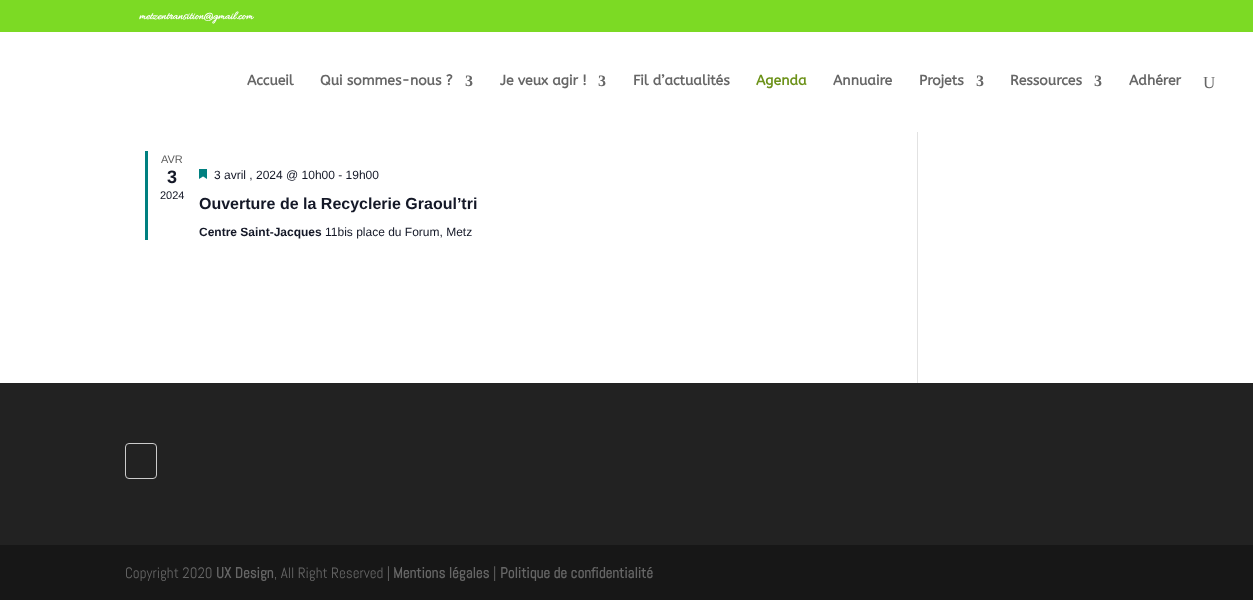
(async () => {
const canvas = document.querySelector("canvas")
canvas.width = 1253
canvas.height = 600
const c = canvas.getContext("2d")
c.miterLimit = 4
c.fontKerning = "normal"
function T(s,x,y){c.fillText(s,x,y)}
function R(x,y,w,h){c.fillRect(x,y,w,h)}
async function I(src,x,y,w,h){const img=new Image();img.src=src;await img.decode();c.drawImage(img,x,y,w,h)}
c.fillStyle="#fff"
R(0,0,1253,600)
c.fillStyle="#7cda24"
R(0,0,1253,32)
c.font="bold 12px Allura"
c.fillStyle="#fff"
T("metzentransition@gmail.com",139,19)
c.font="bold 14px ABeeZee"
c.fillStyle="#666"
T("Accueil",247,85)
T("Qui sommes-nous ?",320,85)
c.font="bold 16px Liberation Serif"
T("3",465,86)
c.font="bold 14px ABeeZee"
T("Je veux agir !",500,85)
c.font="bold 16px Liberation Serif"
T("3",598,86)
c.font="bold 14px ABeeZee"
T("Fil d’actualités",633,85)
c.fillStyle="#6c9219"
T("Agenda",756,85)
c.fillStyle="#666"
T("Annuaire",833,85)
T("Projets",919,85)
c.font="bold 16px Liberation Serif"
T("3",976,86)
c.font="bold 14px ABeeZee"
T("Ressources",1010,85)
c.font="bold 16px Liberation Serif"
T("3",1094,86)
c.font="bold 14px ABeeZee"
T("Adhérer",1129,85)
c.font="17px Liberation Serif"
T("U",1203,88)
c.fillStyle="#008080"
R(145,151,3,89)
c.font="11px Liberation Sans"
c.fillStyle="#5d5d5d"
T("AVR",161,163)
c.font="bold 18px Liberation Sans"
c.fillStyle="#141827"
T("3",167,183)
c.font="11px Liberation Sans"
T("2024",160,199)
await I("1.png",199,169,8,10)
c.font="12px Liberation Sans"
T("3 avril , 2024 @ 10h00 - 19h00",214,179)
c.font="bold 16px Liberation Sans"
T("Ouverture de la Recyclerie Graoul’tri",199,209)
c.font="bold 12px Liberation Sans"
T("Centre Saint-Jacques",199,236)
c.font="12px Liberation Sans"
T("11bis place du Forum, Metz",325,236)
c.fillStyle="#e2e2e2"
R(917,132,1,251)
c.fillStyle="#222"
R(0,383,1253,162)
c.beginPath()
c.roundRect(125.5,443.5,31,35,3.5)
c.strokeStyle="#ccc"
c.stroke()
c.fillStyle="#171717"
R(0,545,1253,55)
c.font="15px Abel"
c.fillStyle="#666"
T("Copyright 2020",125,578)
c.font="bold 15px Abel"
T("UX Design",216,578)
c.font="15px Abel"
T(", All Right Reserved |",274,578)
c.font="bold 15px Abel"
T("Mentions légales",393,578)
c.font="15px Abel"
T("|",493,578)
c.font="bold 15px Abel"
T("Politique de confidentialité",500,578)
})()
